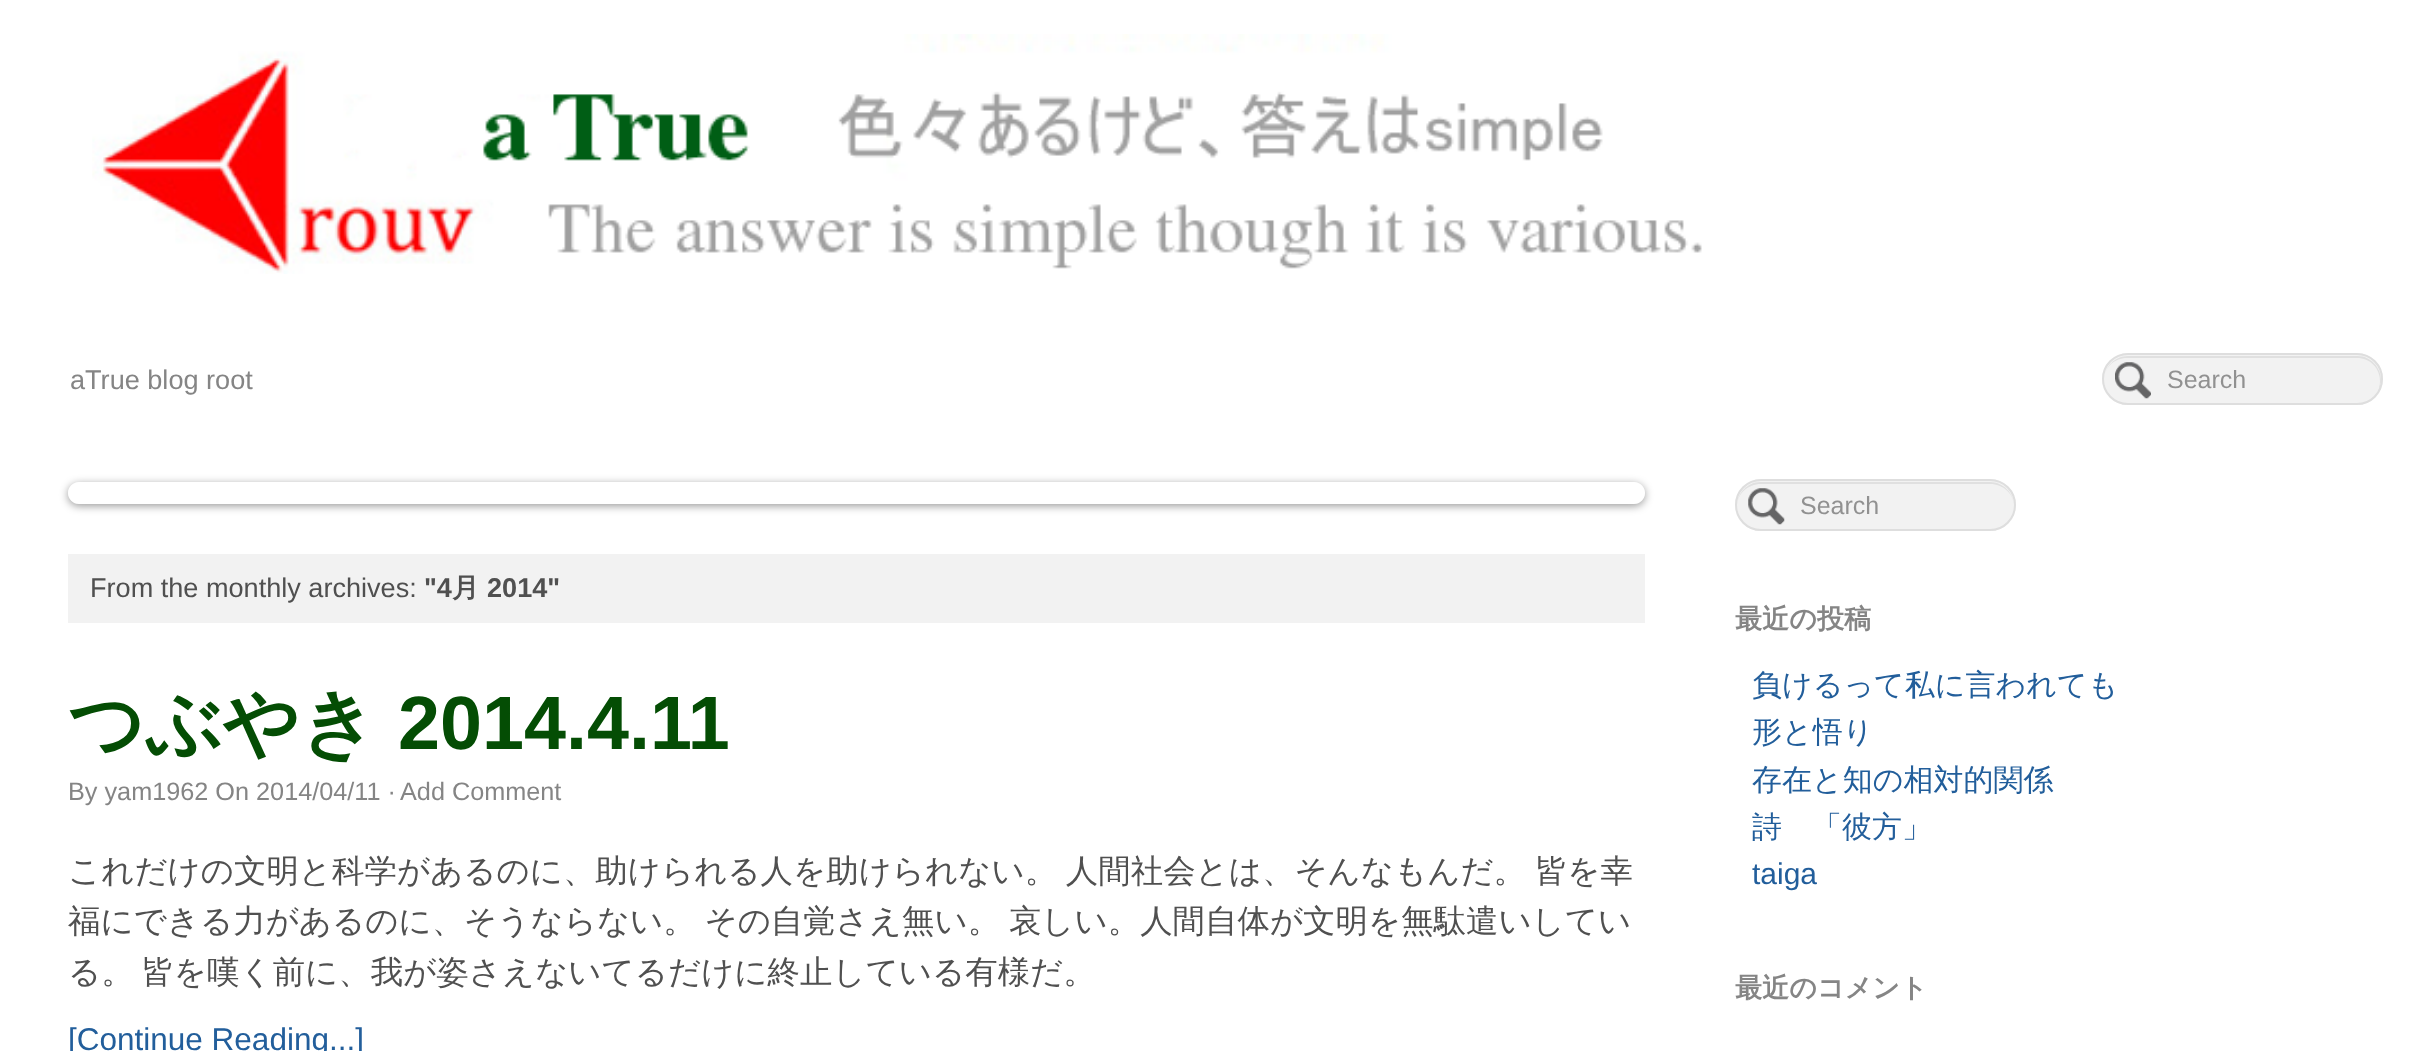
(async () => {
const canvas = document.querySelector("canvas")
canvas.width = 2433
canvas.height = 1051
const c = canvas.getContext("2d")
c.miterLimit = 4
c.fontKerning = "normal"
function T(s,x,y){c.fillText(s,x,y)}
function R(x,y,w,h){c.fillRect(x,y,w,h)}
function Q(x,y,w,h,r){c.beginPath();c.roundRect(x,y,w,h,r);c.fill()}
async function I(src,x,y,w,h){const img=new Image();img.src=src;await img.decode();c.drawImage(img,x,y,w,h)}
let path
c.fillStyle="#fff"
R(0,0,2433,1051)
await I("1.png",92,34,1610,240)
c.font="27.1px Liberation Sans"
c.fillStyle="#858585"
T("aTrue blog root",70,389)
c.fillStyle="#f2f2f2"
Q(2102,353,281,52,26)
await I("2.png",2115,362,36,37)
c.fillStyle="#e0e0e0"
path = new Path2D("M2127 358h230c13 0 23 10 23 23c0 4-1 7-2 11c2-4 3-8 3-12c0-13-11-24-23-24h-230c-13 0-24 11-24 24c0-12 10-22 23-22z")
c.fill(path)
c.beginPath()
c.roundRect(2103,354,279,50,25)
c.strokeStyle="#dedede"
c.lineWidth=2
c.stroke()
c.font="25px Liberation Sans"
c.fillStyle="#919191"
T("Search",2167,388)
c.save()
path = new Path2D("M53 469h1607v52h-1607zm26 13h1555c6 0 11 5 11 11c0 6-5 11-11 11h-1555c-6 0-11-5-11-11c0-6 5-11 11-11z")
c.clip(path,"evenodd")
c.fillStyle="#00000066"
c.filter="blur(4.5px)"
c.beginPath()
c.roundRect(68,484,1577,22,11)
c.fill()
c.filter="none"
c.restore()
c.fillStyle="#ffffff66"
Q(68,482,1577,22,11)
c.fillStyle="#f2f2f2"
R(68,554,1577,69)
c.font="27.1px Liberation Sans"
c.fillStyle="#505050"
T("From the monthly archives:",90,597)
c.font="bold 27.1px Liberation Sans"
T("\"4",424,597)
c.font="bold 27.1px WenQuanYi Zen Hei"
T("月",452,597)
c.font="bold 27.1px Liberation Sans"
T("2014\"",487,597)
c.font="bold 75.5px WenQuanYi Zen Hei"
c.fillStyle="#044d04"
T("つぶやき",68,749)
c.font="bold 75.5px Liberation Sans"
T("2014.4.11",398,749)
c.font="25.25px Liberation Sans"
c.fillStyle="#858585"
T("By yam1962 On 2014/04/11 ·",68,800)
T("Add Comment",400,800)
c.wordSpacing="-1px"
c.font="500 32.45px WenQuanYi Zen Hei"
c.fillStyle="#505050"
T("これだけの文明と科学があるのに、助けられる人を助けられない。 人間社会とは、そんなもんだ。 皆を幸",68,882)
T("福にできる力があるのに、そうならない。 その自覚さえ無い。 哀しい。人間自体が文明を無駄遣いしてい",68,932)
c.wordSpacing="-2px"
T("る。 皆を嘆く前に、我が姿さえないてるだけに終止している有様だ。",68,983)
c.wordSpacing="0px"
c.font="31.5px Liberation Sans"
c.fillStyle="#225e9b"
T("[Continue Reading...]",68,1050)
c.fillStyle="#f2f2f2"
Q(1735,479,281,52,26)
await I("3.png",1748,488,37,37)
c.fillStyle="#e0e0e0"
path = new Path2D("M1761 484h229c13 0 24 10 24 22c0-13-11-24-24-24h-230c-12 0-23 11-23 24c0-12 11-22 24-22z")
c.fill(path)
c.beginPath()
c.roundRect(1736,480,279,50,25)
c.stroke()
c.font="25px Liberation Sans"
c.fillStyle="#919191"
T("Search",1800,514)
c.font="bold 27.1px WenQuanYi Zen Hei"
c.fillStyle="#858585"
T("最近の投稿",1735,628)
c.font="500 30px WenQuanYi Zen Hei"
c.fillStyle="#225e9b"
T("負けるって私に言われても",1752,695)
T("形と悟り",1752,742)
T("存在と知の相対的関係",1752,790)
T("詩　「彼方」",1752,837)
c.font="30px Liberation Sans"
T("taiga",1752,884)
c.font="bold 27.1px WenQuanYi Zen Hei"
c.fillStyle="#858585"
T("最近のコメント",1735,997)
})()
